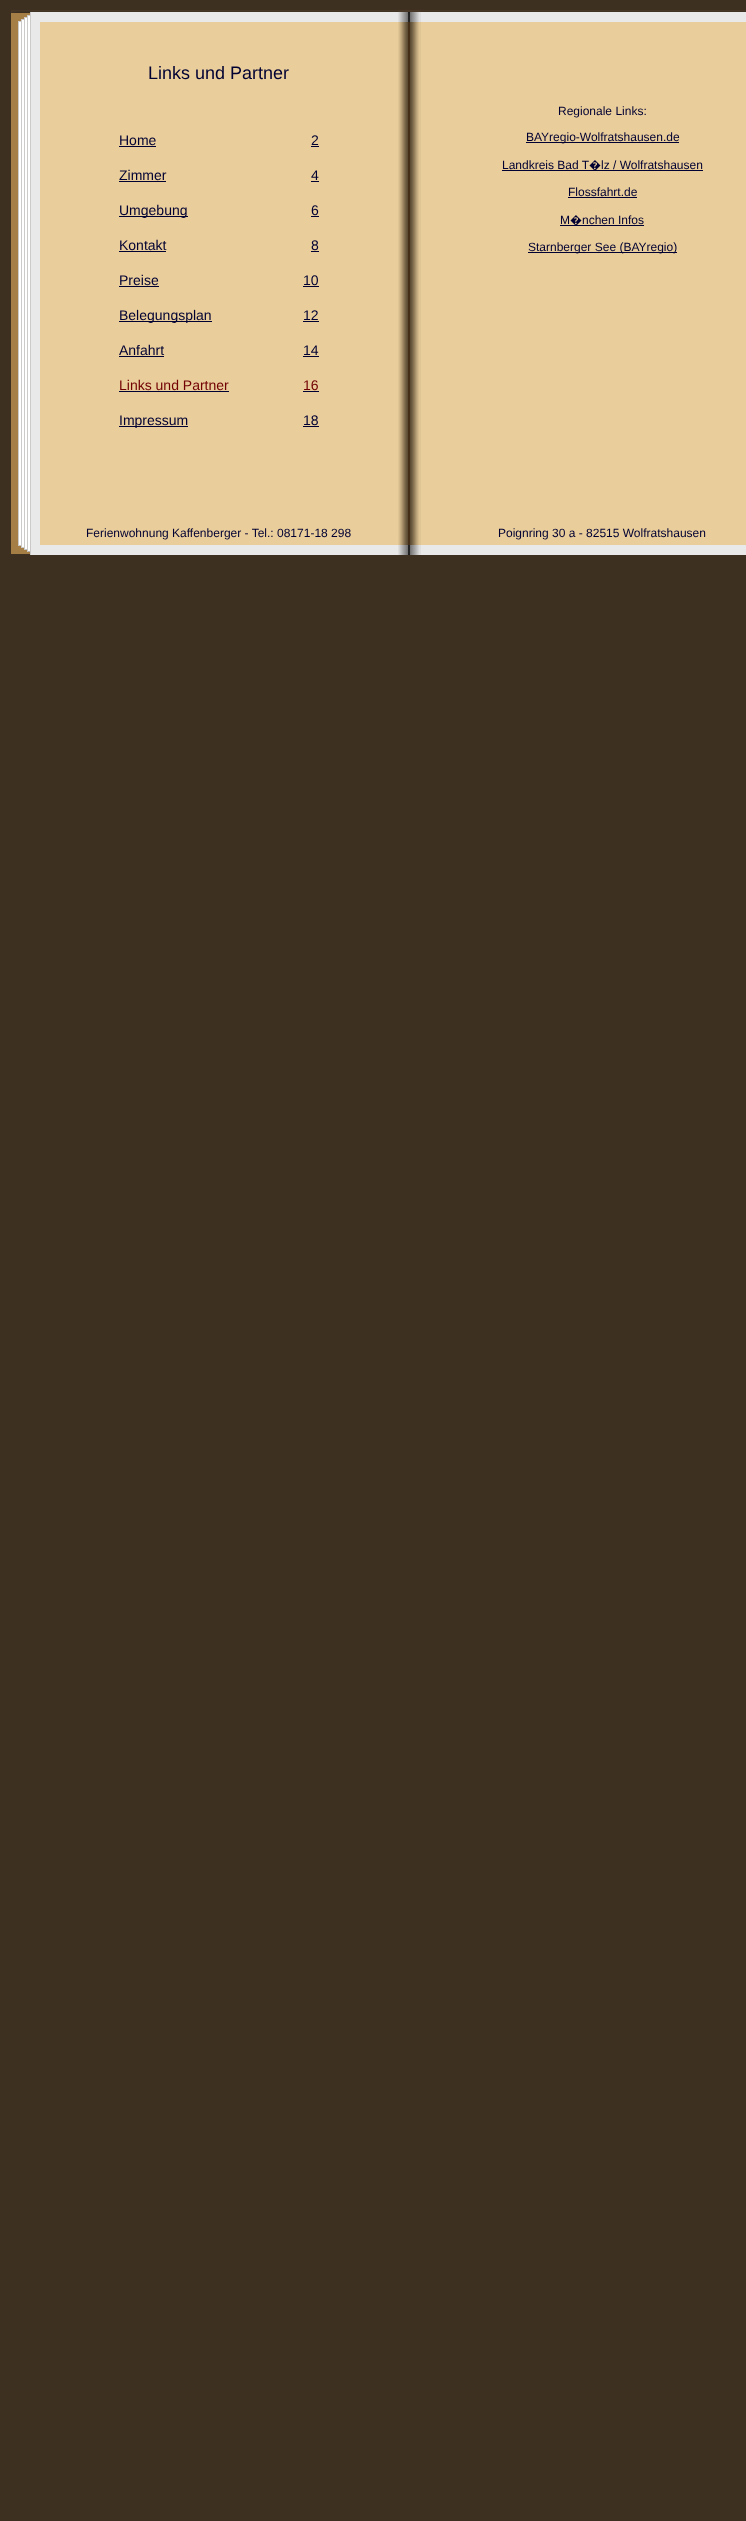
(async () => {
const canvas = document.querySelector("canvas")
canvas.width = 746
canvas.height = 2521
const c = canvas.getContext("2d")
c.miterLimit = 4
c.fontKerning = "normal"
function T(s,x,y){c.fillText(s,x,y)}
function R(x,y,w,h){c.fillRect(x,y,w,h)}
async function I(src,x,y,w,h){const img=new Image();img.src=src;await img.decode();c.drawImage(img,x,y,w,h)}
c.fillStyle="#3e3020"
R(0,0,746,2521)
await I("1.png",11,10,29,16)
await I("2.png",40,10,358,16)
await I("3.png",398,10,23,16)
await I("4.png",421,10,325,16)
await I("5.png",11,26,29,500)
c.fillStyle="#e9cd9a"
R(40,26,358,515)
c.font="18px Liberation Sans"
c.fillStyle="#003"
T("Links und Partner",148,79)
c.font="14px Liberation Sans"
T("Home",119,145)
R(119,146,37,1)
T("2",311,145)
R(311,146,8,1)
T("Zimmer",119,180)
R(119,181,47,1)
T("4",311,180)
R(311,181,8,1)
R(119,216,69,1)
T("Umgebung",119,215)
T("6",311,215)
R(311,216,8,1)
T("Kontakt",119,250)
R(119,251,47,1)
T("8",311,250)
R(311,251,8,1)
T("Preise",119,285)
R(119,286,40,1)
T("10",303,285)
R(303,286,16,1)
R(119,321,93,1)
T("Belegungsplan",119,320)
T("12",303,320)
R(303,321,16,1)
T("Anfahrt",119,355)
R(119,356,45,1)
T("14",303,355)
R(303,356,16,1)
c.fillStyle="#710003"
T("Links und Partner",119,390)
c.fillStyle="#003"
R(119,391,110,1)
c.fillStyle="#710003"
T("16",303,390)
c.fillStyle="#003"
R(303,391,16,1)
R(119,426,69,1)
T("Impressum",119,425)
T("18",303,425)
R(303,426,16,1)
await I("6.png",398,26,23,500)
c.fillStyle="#e9cd9a"
R(421,26,325,515)
c.font="12px Liberation Sans"
c.fillStyle="#003"
T("Regionale Links:",558,115)
R(526,142,153,1)
T("BAYregio-Wolfratshausen.de",526,141)
T("Landkreis Bad T",502,169)
R(502,170,201,1)
c.font="12px Noto Sans"
T("�",589,169)
c.font="12px Liberation Sans"
T("lz / Wolfratshausen",601,169)
T("Flossfahrt.de",568,196)
R(568,197,69,1)
T("M",560,224)
R(560,225,84,1)
c.font="12px Noto Sans"
T("�",570,224)
c.font="12px Liberation Sans"
T("nchen Infos",582,224)
R(528,252,149,1)
T("Starnberger See (BAYregio)",528,251)
await I("7.png",11,526,29,15)
T("Ferienwohnung Kaffenberger - Tel.: 08171-18 298",86,537)
await I("8.png",398,526,23,15)
T("Poignring 30 a - 82515 Wolfratshausen",498,537)
await I("9.png",11,541,29,14)
await I("10.png",40,541,358,14)
await I("11.png",398,541,23,14)
await I("12.png",421,541,325,14)
})()
